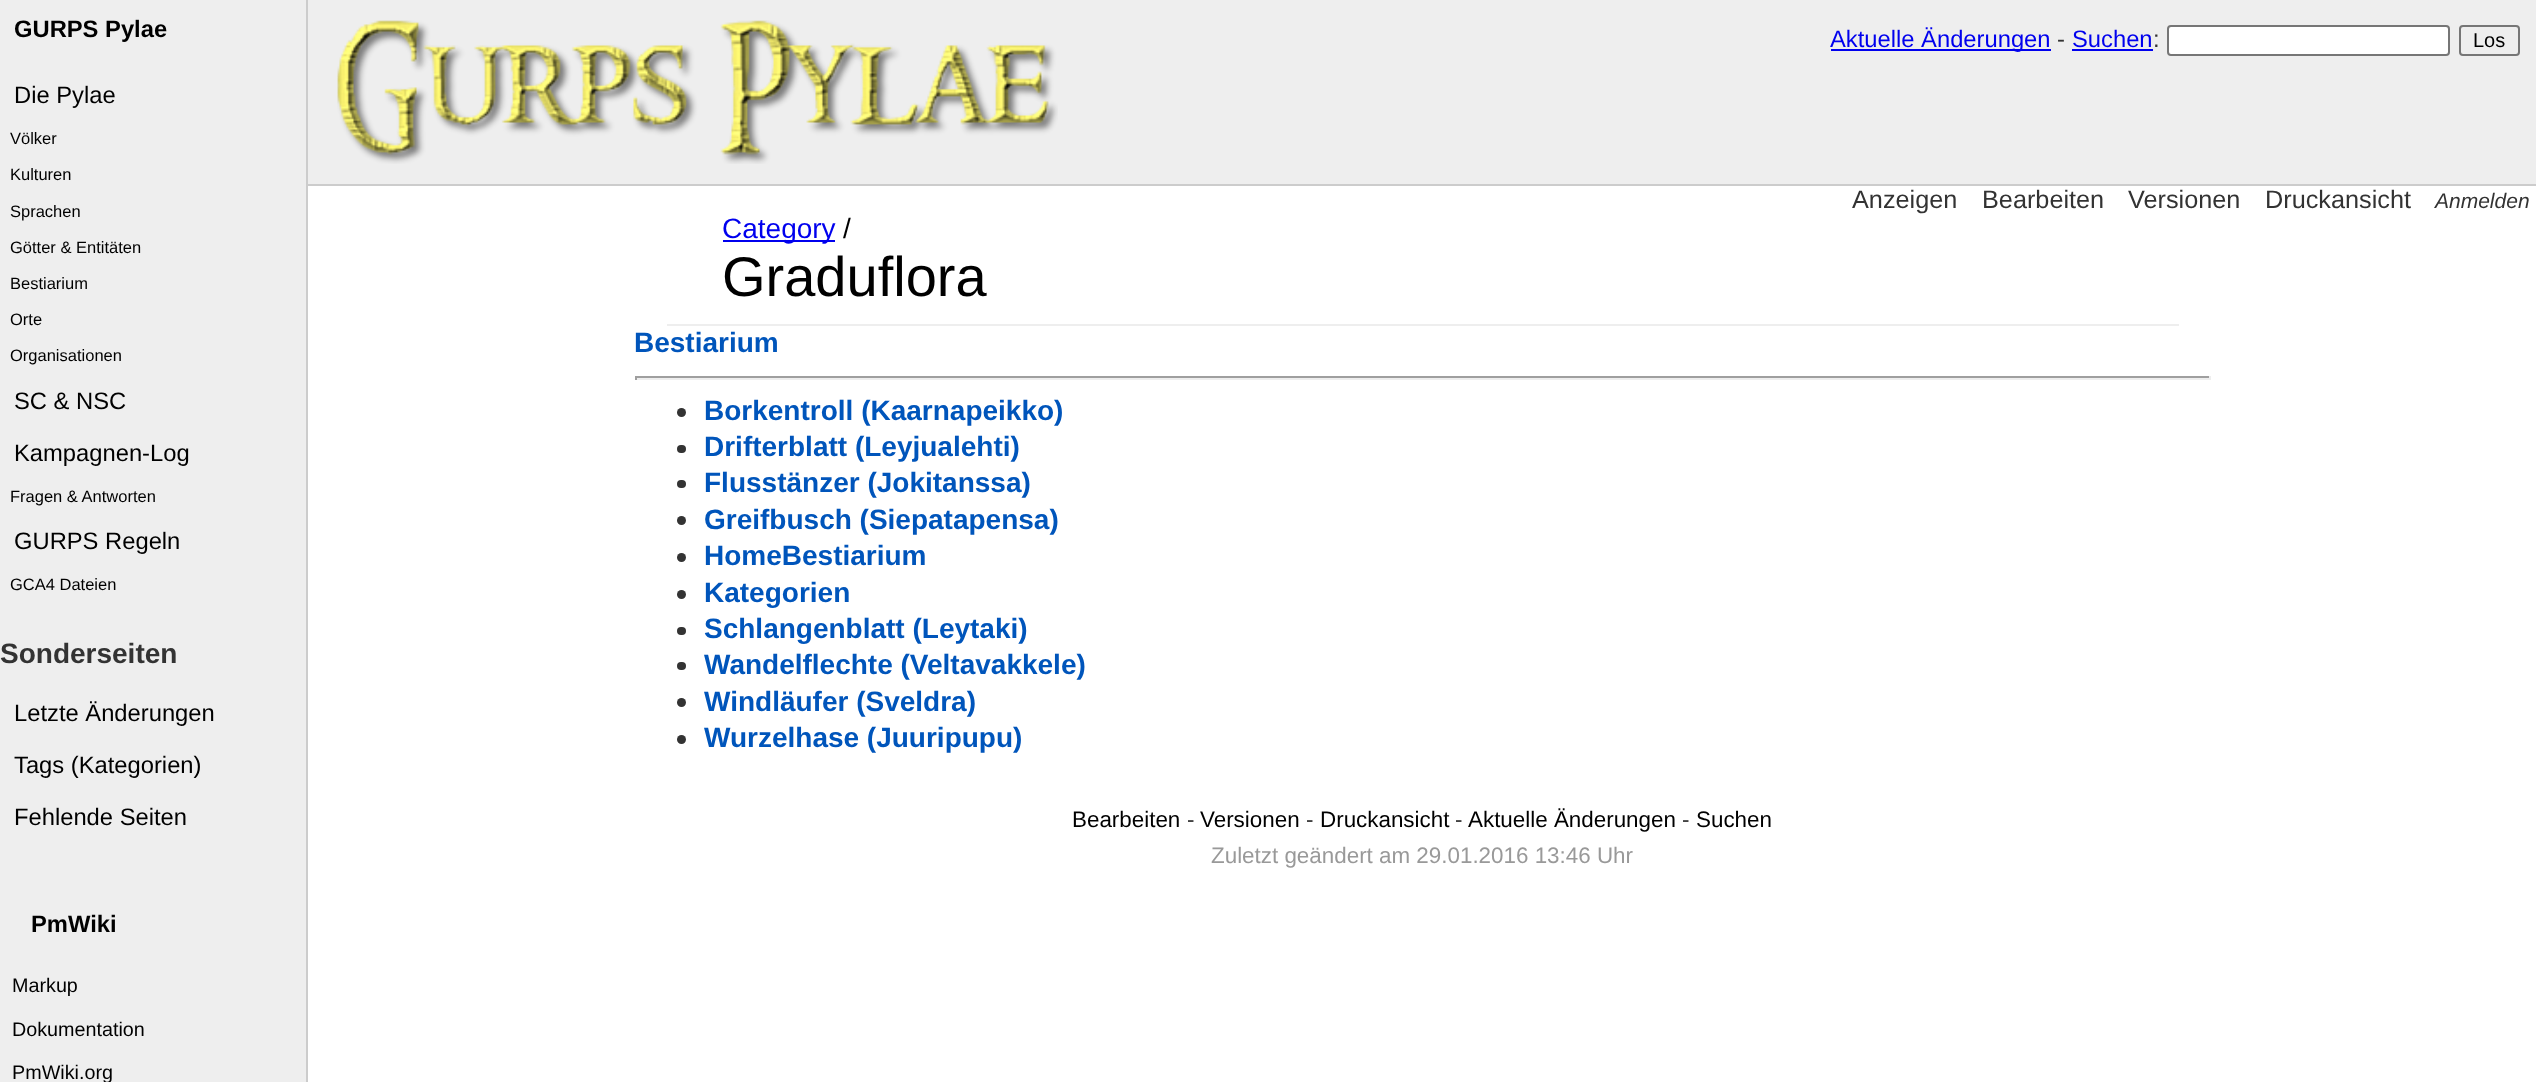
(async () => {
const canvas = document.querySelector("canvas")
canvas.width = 2536
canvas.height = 1082
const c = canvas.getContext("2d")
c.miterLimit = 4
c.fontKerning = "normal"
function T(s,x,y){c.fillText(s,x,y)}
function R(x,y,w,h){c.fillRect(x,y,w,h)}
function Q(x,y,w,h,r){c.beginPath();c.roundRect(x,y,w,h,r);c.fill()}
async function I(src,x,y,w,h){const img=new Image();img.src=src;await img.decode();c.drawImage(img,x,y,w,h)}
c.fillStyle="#fff"
R(0,0,2536,1082)
c.fillStyle="#eee"
R(0,0,306,1082)
c.fillStyle="#ccc"
R(306,184,2230,2)
R(306,0,2,1082)
c.font="bold 23.75px Liberation Sans"
c.fillStyle="#000"
T("GURPS Pylae",14,37)
c.font="23.75px Liberation Sans"
T("Die Pylae",14,103)
c.font="16.5px Liberation Sans"
T("Völker",10,144)
T("Kulturen",10,180)
T("Sprachen",10,217)
T("Götter & Entitäten",10,253)
T("Bestiarium",10,289)
T("Orte",10,325)
T("Organisationen",10,361)
c.font="23.75px Liberation Sans"
T("SC & NSC",14,409)
T("Kampagnen-Log",14,461)
c.font="16.5px Liberation Sans"
T("Fragen & Antworten",10,502)
c.font="23.75px Liberation Sans"
T("GURPS Regeln",14,549)
c.font="16.5px Liberation Sans"
T("GCA4 Dateien",10,590)
c.font="bold 28px Liberation Sans"
c.fillStyle="#333"
T("Sonderseiten",0,663)
c.font="23.75px Liberation Sans"
c.fillStyle="#000"
T("Letzte Änderungen",14,721)
T("Tags (Kategorien)",14,773)
T("Fehlende Seiten",14,825)
c.font="bold 23.75px Liberation Sans"
T("PmWiki",31,932)
c.font="19.75px Liberation Sans"
T("Markup",12,992)
T("Dokumentation",12,1036)
T("PmWiki.org",12,1079)
c.fillStyle="#eee"
R(308,0,2228,184)
await I("1.png",337,20,721,144)
c.fillStyle="#00e"
R(1831,49,220,2)
c.font="23.75px Liberation Sans"
T("Aktuelle Änderungen",1830,47)
c.fillStyle="#333"
T("-",2057,47)
c.fillStyle="#00e"
T("Suchen",2072,47)
R(2072,49,81,2)
c.fillStyle="#333"
T(":",2153,47)
c.fillStyle="#fff"
c.beginPath()
c.roundRect(2168,26,281,29,3)
c.fill()
c.strokeStyle="#767676"
c.lineWidth=2
c.stroke()
c.beginPath()
c.roundRect(2460,26,59,29,3)
c.stroke()
c.font="20px Liberation Sans"
c.fillStyle="#000"
T("Los",2473,47)
c.font="25.25px Liberation Sans"
c.fillStyle="#333"
T("Anzeigen",1852,208)
T("Bearbeiten",1982,208)
T("Versionen",2128,208)
T("Druckansicht",2265,208)
c.font="italic 21px Liberation Sans"
T("Anmelden",2435,208)
c.fillStyle="#eee"
R(667,324,1512,2)
c.fillStyle="#00e"
R(723,240,112,2)
c.font="28px Liberation Sans"
T("Category",722,238)
c.fillStyle="#000"
T("/",843,238)
c.font="56px Liberation Sans"
T("Graduflora",722,296)
c.font="bold 28px Liberation Sans"
c.fillStyle="#05b"
T("Bestiarium",634,352)
c.fillStyle="#9f9f9f"
R(635,376,1575,2)
c.fillStyle="#eee"
R(2209,376,2,4)
R(635,378,1575,2)
c.fillStyle="#9f9f9f"
R(635,376,2,4)
c.fillStyle="#333"
c.beginPath()
c.arc(681.5,412.5,4.5,0,7)
c.fill()
c.fillStyle="#05b"
T("Borkentroll (Kaarnapeikko)",704,420)
c.fillStyle="#333"
Q(677,445,9,8,4)
c.fillStyle="#05b"
T("Drifterblatt (Leyjualehti)",704,456)
c.fillStyle="#333"
Q(677,480,9,8,4)
c.fillStyle="#05b"
T("Flusstänzer (Jokitanssa)",704,492)
c.fillStyle="#333"
c.beginPath()
c.arc(681.5,520.5,4.5,0,7)
c.fill()
c.fillStyle="#05b"
T("Greifbusch (Siepatapensa)",704,529)
c.fillStyle="#333"
c.beginPath()
c.arc(681.5,557.5,4.5,0,7)
c.fill()
c.fillStyle="#05b"
T("HomeBestiarium",704,565)
c.fillStyle="#333"
c.beginPath()
c.arc(681.5,594.5,4.5,0,7)
c.fill()
c.fillStyle="#05b"
T("Kategorien",704,602)
c.fillStyle="#333"
Q(677,627,9,8,4)
c.fillStyle="#05b"
T("Schlangenblatt (Leytaki)",704,638)
c.fillStyle="#333"
Q(677,662,9,8,4)
c.fillStyle="#05b"
T("Wandelflechte (Veltavakkele)",704,674)
c.fillStyle="#333"
c.beginPath()
c.arc(681.5,702.5,4.5,0,7)
c.fill()
c.fillStyle="#05b"
T("Windläufer (Sveldra)",704,711)
c.fillStyle="#333"
c.beginPath()
c.arc(681.5,739.5,4.5,0,7)
c.fill()
c.fillStyle="#05b"
T("Wurzelhase (Juuripupu)",704,747)
c.font="22.4px Liberation Sans"
c.fillStyle="#000"
T("Bearbeiten",1072,827)
c.fillStyle="#333"
T("-",1187,827)
c.fillStyle="#000"
T("Versionen",1200,827)
c.fillStyle="#333"
T("-",1306,827)
c.fillStyle="#000"
T("Druckansicht",1320,827)
c.fillStyle="#333"
T("-",1455,827)
c.fillStyle="#000"
T("Aktuelle Änderungen",1468,827)
c.fillStyle="#333"
T("-",1682,827)
c.fillStyle="#000"
T("Suchen",1696,827)
c.fillStyle="#999"
T("Zuletzt geändert am 29.01.2016 13:46 Uhr",1211,863)
})()
